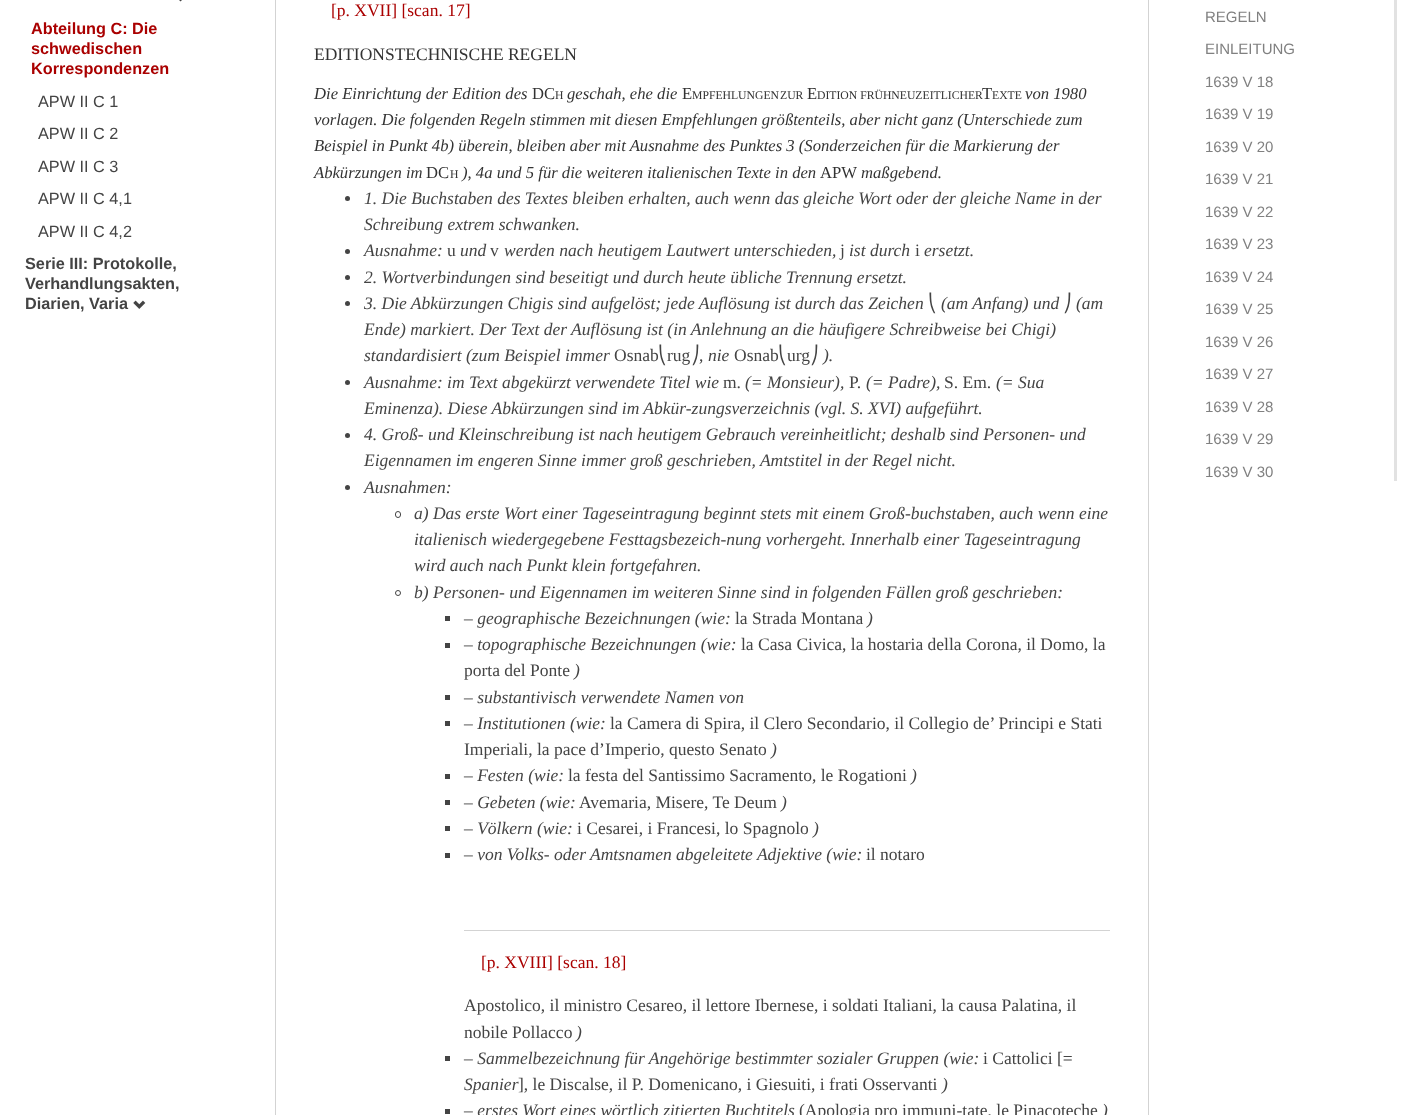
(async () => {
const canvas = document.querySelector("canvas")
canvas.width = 1423
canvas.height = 1115
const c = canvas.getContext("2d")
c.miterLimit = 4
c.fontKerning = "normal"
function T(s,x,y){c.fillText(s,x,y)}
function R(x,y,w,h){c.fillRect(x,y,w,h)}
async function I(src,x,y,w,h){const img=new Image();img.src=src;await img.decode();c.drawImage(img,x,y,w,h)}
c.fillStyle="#fff"
R(0,0,1423,1115)
await I("1.png",179,0,3,2)
c.font="bold 16.25px Liberation Sans"
c.fillStyle="#a00"
T("Abteilung C: Die",31,34)
T("schwedischen",31,54)
T("Korrespondenzen",31,74)
c.font="16.25px Liberation Sans"
c.fillStyle="#444"
T("APW II C 1",38,107)
T("APW II C 2",38,139)
T("APW II C 3",38,172)
T("APW II C 4,1",38,204)
T("APW II C 4,2",38,237)
c.font="bold 16.25px Liberation Sans"
T("Serie III: Protokolle,",25,269)
T("Verhandlungsakten,",25,289)
T("Diarien, Varia",25,309)
await I("2.png",133,300,13,9)
c.strokeStyle="#d3d3d3"
c.strokeRect(275.5,-.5,873,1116)
c.font="17.5px Liberation Serif"
c.fillStyle="#a00"
T("[p. XVII] [scan. 17]",331,16)
c.fillStyle="#333"
T("EDITIONSTECHNISCHE REGELN",314,60)
c.font="italic 16.65px Liberation Serif"
T("Die Einrichtung der Edition des",314,99)
c.font="16.65px Liberation Serif"
T("DC",532,99)
c.font="11.7px Liberation Serif"
T("H",555,99)
c.font="italic 16.65px Liberation Serif"
T("geschah, ehe die",567,99)
c.font="16.65px Liberation Serif"
T("E",682,99)
c.font="11.7px Liberation Serif"
T("MPFEHLUNGEN",692,99)
T("ZUR",780,99)
c.font="16.65px Liberation Serif"
T("E",807,99)
c.font="11.7px Liberation Serif"
T("DITION FRÜHNEUZEITLICHER",817,99)
c.font="16.65px Liberation Serif"
T("T",982,99)
c.font="11.7px Liberation Serif"
T("EXTE",992,99)
c.font="italic 16.65px Liberation Serif"
T("von 1980",1025,99)
T("vorlagen. Die folgenden Regeln stimmen mit diesen Empfehlungen größtenteils, aber nicht ganz (Unterschiede zum",314,125)
T("Beispiel in Punkt 4b) überein, bleiben aber mit Ausnahme des Punktes 3 (Sonderzeichen für die Markierung der",314,151)
T("Abkürzungen im",314,178)
c.font="16.65px Liberation Serif"
T("DC",426,178)
c.font="11.7px Liberation Serif"
T("H",450,178)
c.font="italic 16.65px Liberation Serif"
T("), 4a und 5 für die weiteren italienischen Texte in den",462,178)
c.font="16.65px Liberation Serif"
T("APW",820,178)
c.font="italic 16.65px Liberation Serif"
T("maßgebend.",861,178)
c.fillStyle="#444"
c.beginPath()
c.arc(347.5,198.5,2.5,0,7)
c.fill()
c.font="italic 17.5px Liberation Serif"
T("1. Die Buchstaben des Textes bleiben erhalten, auch wenn das gleiche Wort oder der gleiche Name in der",364,204)
T("Schreibung extrem schwanken.",364,230)
c.beginPath()
c.arc(347.5,251.5,2.5,0,7)
c.fill()
T("Ausnahme:",364,256)
c.font="17.5px Liberation Serif"
T("u",447,256)
c.font="italic 17.5px Liberation Serif"
T("und",460,256)
c.font="17.5px Liberation Serif"
T("v",490,256)
c.font="italic 17.5px Liberation Serif"
T("werden nach heutigem Lautwert unterschieden,",504,256)
c.font="17.5px Liberation Serif"
T("j",840,256)
c.font="italic 17.5px Liberation Serif"
T("ist durch",849,256)
c.font="17.5px Liberation Serif"
T("i",915,256)
c.font="italic 17.5px Liberation Serif"
T("ersetzt.",924,256)
c.beginPath()
c.arc(347.5,277.5,2.5,0,7)
c.fill()
T("2. Wortverbindungen sind beseitigt und durch heute übliche Trennung ersetzt.",364,283)
c.beginPath()
c.arc(347.5,303.5,2.5,0,7)
c.fill()
T("3. Die Abkürzungen Chigis sind aufgelöst; jede Auflösung ist durch das Zeichen",364,309)
c.font="17.5px DejaVu Sans"
T("⎝",928,309)
c.font="italic 17.5px Liberation Serif"
T("(am Anfang) und",941,309)
c.font="17.5px DejaVu Sans"
T("⎠",1063,309)
c.font="italic 17.5px Liberation Serif"
T("(am",1076,309)
T("Ende) markiert. Der Text der Auflösung ist (in Anlehnung an die häufigere Schreibweise bei Chigi)",364,335)
T("standardisiert (zum Beispiel immer",364,361)
c.font="17.5px Liberation Serif"
T("Osnab",614,361)
c.font="17.5px DejaVu Sans"
T("⎝",658,361)
c.font="17.5px Liberation Serif"
T("rug",667,361)
c.font="17.5px DejaVu Sans"
T("⎠",691,361)
c.font="17.5px Liberation Serif"
T(",",699,361)
c.font="italic 17.5px Liberation Serif"
T("nie",708,361)
c.font="17.5px Liberation Serif"
T("Osnab",734,361)
c.font="17.5px DejaVu Sans"
T("⎝",778,361)
c.font="17.5px Liberation Serif"
T("urg",787,361)
c.font="17.5px DejaVu Sans"
T("⎠",810,361)
c.font="italic 17.5px Liberation Serif"
T(").",823,361)
c.beginPath()
c.arc(347.5,382.5,2.5,0,7)
c.fill()
T("Ausnahme: im Text abgekürzt verwendete Titel wie",364,388)
c.font="17.5px Liberation Serif"
T("m.",723,388)
c.font="italic 17.5px Liberation Serif"
T("(= Monsieur),",745,388)
c.font="17.5px Liberation Serif"
T("P.",849,388)
c.font="italic 17.5px Liberation Serif"
T("(= Padre),",866,388)
c.font="17.5px Liberation Serif"
T("S. Em.",944,388)
c.font="italic 17.5px Liberation Serif"
T("(= Sua",996,388)
T("Eminenza). Diese Abkürzungen sind im Abkür-zungsverzeichnis (vgl. S. XVI) aufgeführt.",364,414)
c.beginPath()
c.arc(347.5,435.5,2.5,0,7)
c.fill()
T("4. Groß- und Kleinschreibung ist nach heutigem Gebrauch vereinheitlicht; deshalb sind Personen- und",364,440)
T("Eigennamen im engeren Sinne immer groß geschrieben, Amtstitel in der Regel nicht.",364,466)
c.beginPath()
c.arc(347.5,487.5,2.5,0,7)
c.fill()
T("Ausnahmen:",364,493)
c.beginPath()
c.roundRect(395.5,511.5,5,6,2.5)
c.strokeStyle="#444"
c.stroke()
T("a) Das erste Wort einer Tageseintragung beginnt stets mit einem Groß-buchstaben, auch wenn eine",414,519)
T("italienisch wiedergegebene Festtagsbezeich-nung vorhergeht. Innerhalb einer Tageseintragung",414,545)
T("wird auch nach Punkt klein fortgefahren.",414,571)
c.beginPath()
c.arc(398,593,2.5,0,7)
c.stroke()
T("b) Personen- und Eigennamen im weiteren Sinne sind in folgenden Fällen groß geschrieben:",414,598)
R(445,616,5,5)
T("– geographische Bezeichnungen (wie:",464,624)
c.font="17.5px Liberation Serif"
T("la Strada Montana",735,624)
c.font="italic 17.5px Liberation Serif"
T(")",867,624)
R(445,643,5,5)
T("– topographische Bezeichnungen (wie:",464,650)
c.font="17.5px Liberation Serif"
T("la Casa Civica, la hostaria della Corona, il Domo, la",741,650)
T("porta del Ponte",464,676)
c.font="italic 17.5px Liberation Serif"
T(")",574,676)
R(445,695,5,5)
T("– substantivisch verwendete Namen von",464,703)
R(445,721,5,5)
T("– Institutionen (wie:",464,729)
c.font="17.5px Liberation Serif"
T("la Camera di Spira, il Clero Secondario, il Collegio de’ Principi e Stati",610,729)
T("Imperiali, la pace d’Imperio, questo Senato",464,755)
c.font="italic 17.5px Liberation Serif"
T(")",771,755)
R(445,774,5,5)
T("– Festen (wie:",464,781)
c.font="17.5px Liberation Serif"
T("la festa del Santissimo Sacramento, le Rogationi",568,781)
c.font="italic 17.5px Liberation Serif"
T(")",911,781)
R(445,800,5,5)
T("– Gebeten (wie:",464,808)
c.font="17.5px Liberation Serif"
T("Avemaria, Misere, Te Deum",579,808)
c.font="italic 17.5px Liberation Serif"
T(")",781,808)
R(445,826,5,5)
T("– Völkern (wie:",464,834)
c.font="17.5px Liberation Serif"
T("i Cesarei, i Francesi, lo Spagnolo",577,834)
c.font="italic 17.5px Liberation Serif"
T(")",813,834)
R(445,853,5,5)
T("– von Volks- oder Amtsnamen abgeleitete Adjektive (wie:",464,860)
c.font="17.5px Liberation Serif"
T("il notaro",866,860)
c.fillStyle="#d3d3d3"
R(464,930,646,1)
c.fillStyle="#a00"
T("[p. XVIII] [scan. 18]",481,968)
c.fillStyle="#444"
T("Apostolico, il ministro Cesareo, il lettore Ibernese, i soldati Italiani, la causa Palatina, il",464,1011)
T("nobile Pollacco",464,1038)
c.font="italic 17.5px Liberation Serif"
T(")",576,1038)
R(445,1056,5,5)
T("– Sammelbezeichnung für Angehörige bestimmter sozialer Gruppen (wie:",464,1064)
c.font="17.5px Liberation Serif"
T("i Cattolici [=",983,1064)
c.font="italic 17.5px Liberation Serif"
T("Spanier",464,1090)
c.font="17.5px Liberation Serif"
T("], le Discalse, il P. Domenicano, i Giesuiti, i frati Osservanti",518,1090)
c.font="italic 17.5px Liberation Serif"
T(")",942,1090)
R(445,1109,5,5)
T("– erstes Wort eines wörtlich zitierten Buchtitels",464,1116)
c.font="17.5px Liberation Serif"
T("(Apologia pro immuni-tate, le Pinacoteche",799,1116)
c.font="italic 17.5px Liberation Serif"
T(")",1102,1116)
c.font="15px Liberation Sans"
c.fillStyle="#808080"
T("REGELN",1205,22)
T("EINLEITUNG",1205,54)
T("1639 V 18",1205,87)
T("1639 V 19",1205,119)
T("1639 V 20",1205,152)
T("1639 V 21",1205,184)
T("1639 V 22",1205,217)
T("1639 V 23",1205,249)
T("1639 V 24",1205,282)
T("1639 V 25",1205,314)
T("1639 V 26",1205,347)
T("1639 V 27",1205,379)
T("1639 V 28",1205,412)
T("1639 V 29",1205,444)
T("1639 V 30",1205,477)
c.fillStyle="#e2e2e2"
R(1394,0,3,481)
})()
